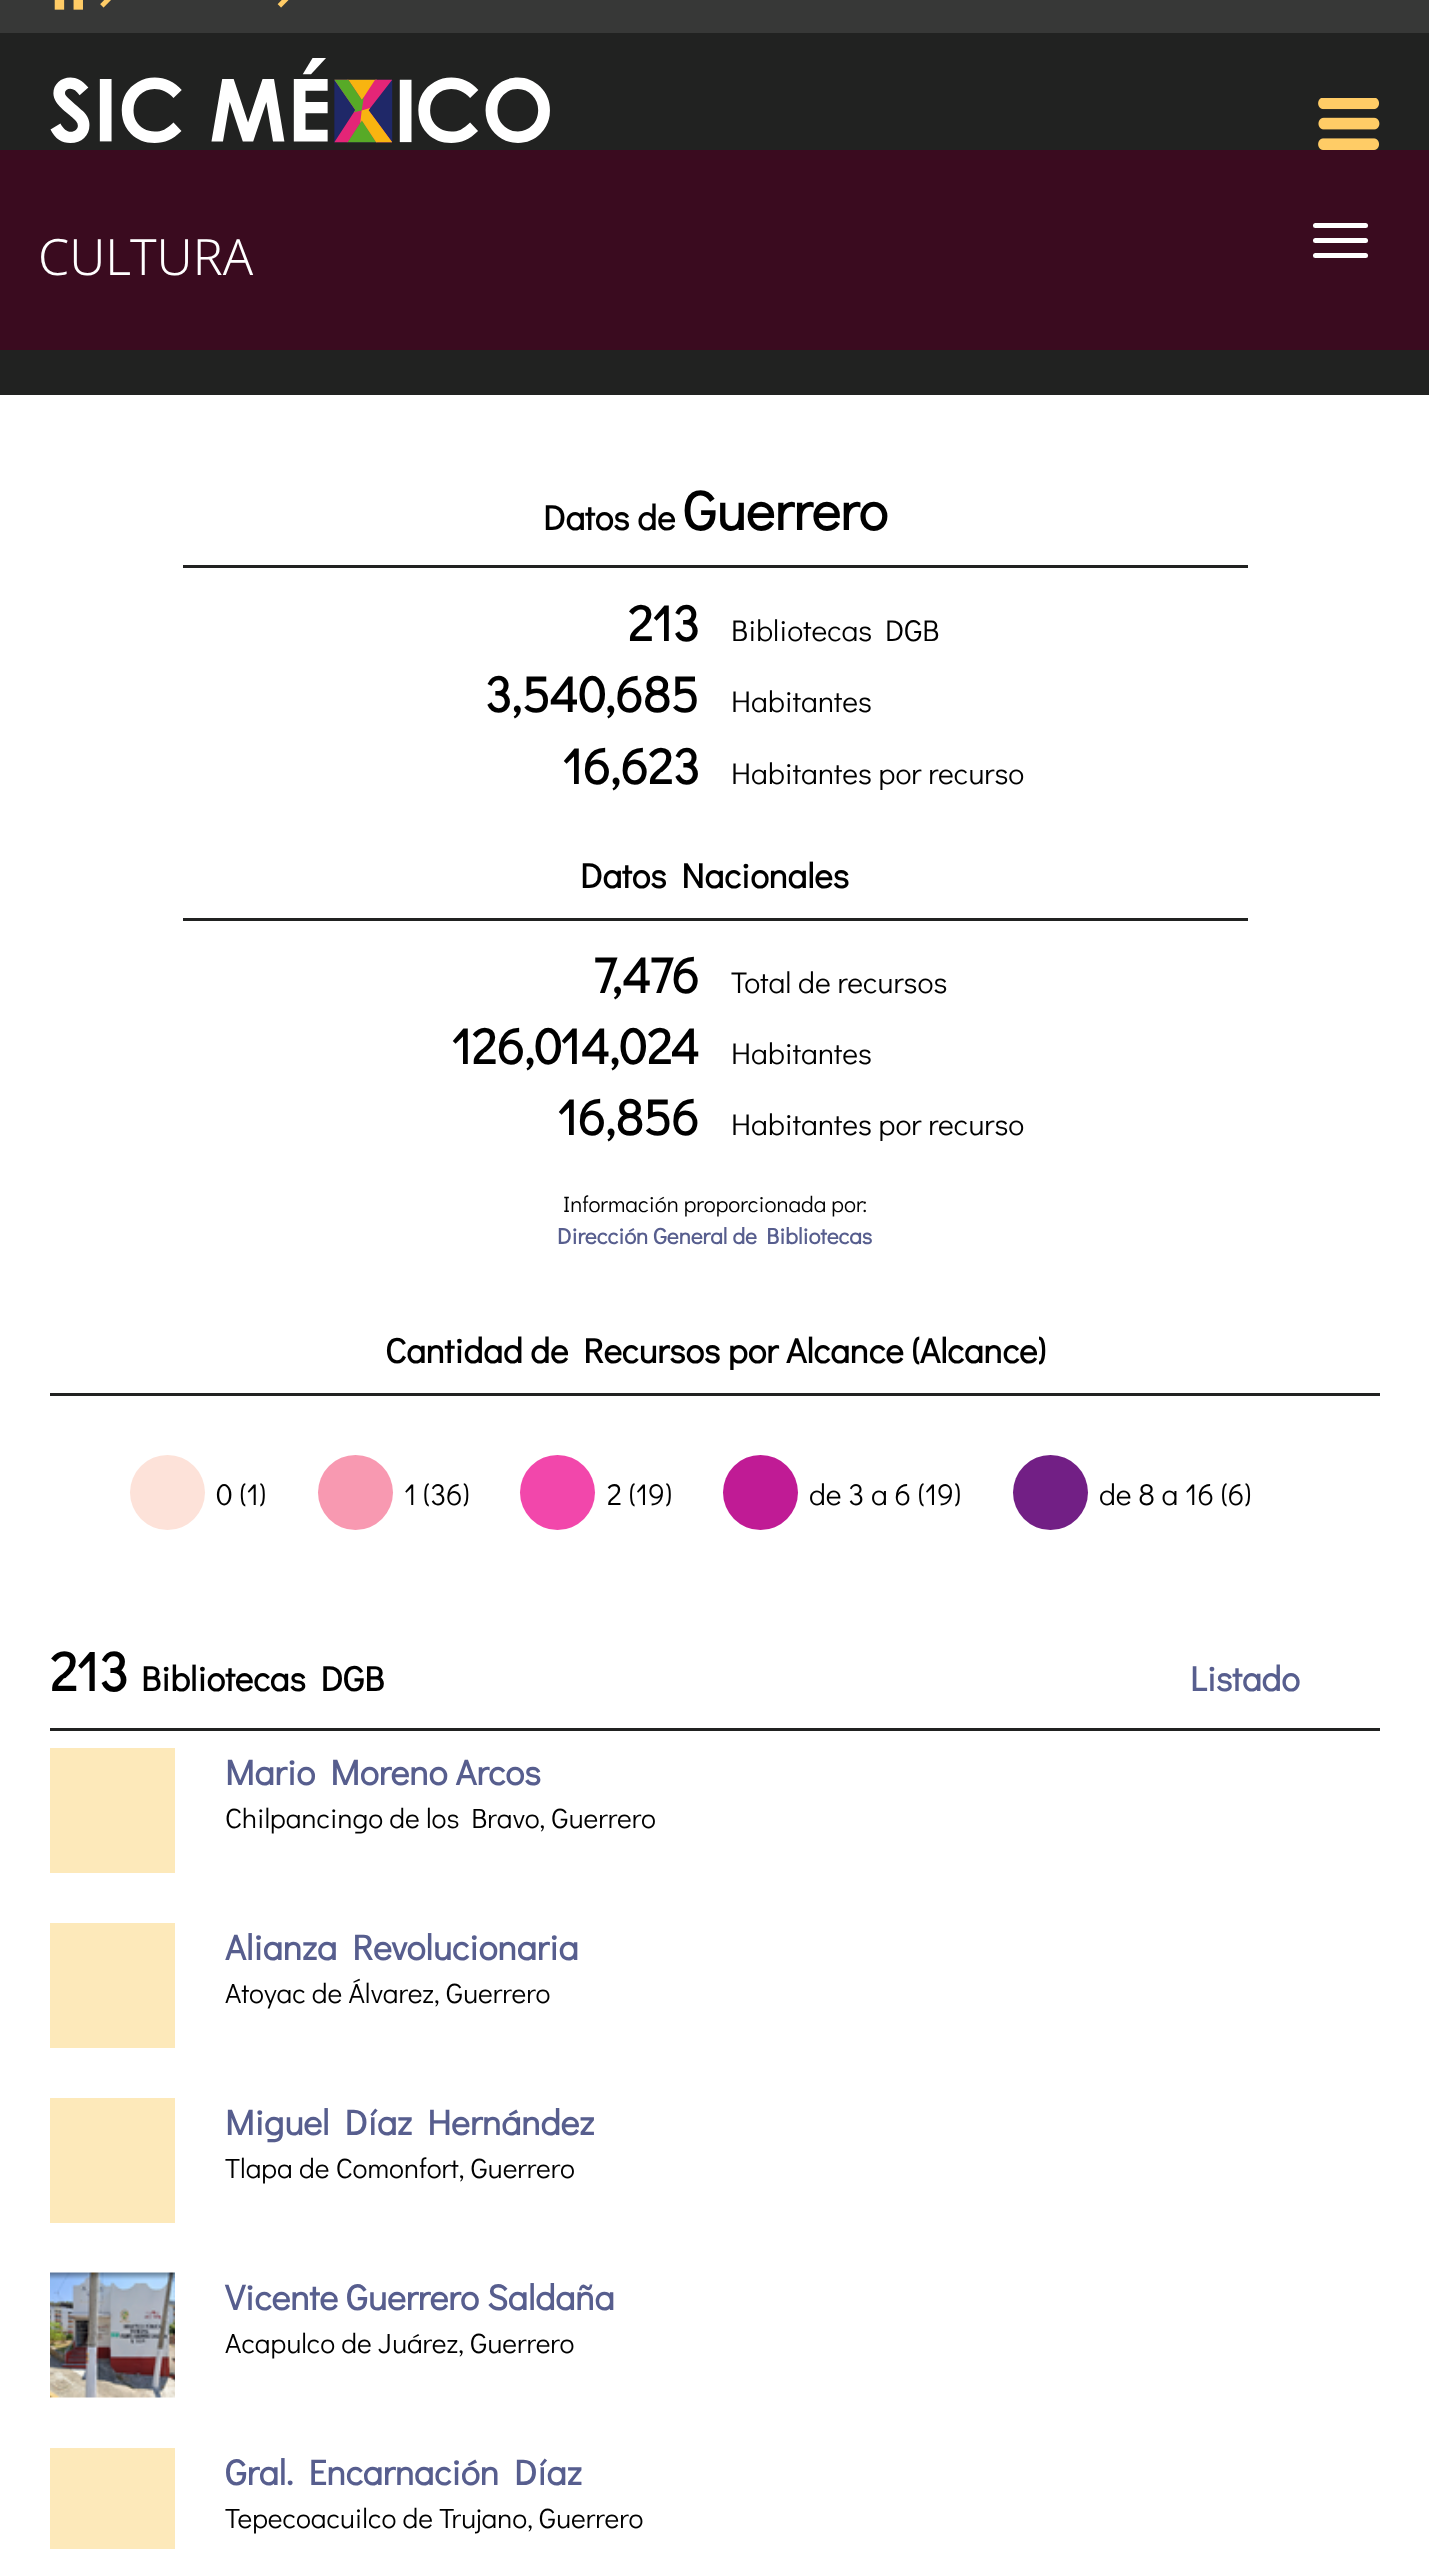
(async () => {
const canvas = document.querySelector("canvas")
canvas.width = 1429
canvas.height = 2549
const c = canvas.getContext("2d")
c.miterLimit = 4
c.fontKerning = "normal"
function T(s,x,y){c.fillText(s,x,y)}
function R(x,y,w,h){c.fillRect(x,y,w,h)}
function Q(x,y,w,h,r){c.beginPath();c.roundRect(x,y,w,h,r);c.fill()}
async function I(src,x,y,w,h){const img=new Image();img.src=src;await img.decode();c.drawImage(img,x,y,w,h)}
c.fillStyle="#fff"
R(0,0,1429,2549)
c.fillStyle="#373837"
R(0,0,1429,33)
await I("1.png",54,0,29,10)
await I("2.png",100,0,11,8)
await I("3.png",277,0,12,8)
c.fillStyle="#212221"
R(0,33,1429,362)
await I("4.png",50,58,500,85)
await I("5.png",1318,98,62,52)
c.fillStyle="#3a0b1f"
R(0,150,1429,200)
c.font="300 50px Noto Sans"
c.fillStyle="#fff"
T("CULTURA",38,275)
Q(1313,223,55,5,2.5)
Q(1313,238,55,5,2.5)
Q(1313,253,55,5,2.5)
c.font="bold 35px Didact Gothic"
c.fillStyle="#000"
T("Datos de",543,530)
c.font="bold 55px Didact Gothic"
T("Guerrero",683,530)
c.fillStyle="#212221"
R(183,565,1065,3)
c.font="bold 50px Didact Gothic"
c.fillStyle="#000"
T("213",628,641)
c.font="30px Didact Gothic"
T("Bibliotecas DGB",731,641)
c.font="bold 50px Didact Gothic"
T("3,540,685",485,712)
c.font="30px Didact Gothic"
T("Habitantes",731,712)
c.font="bold 50px Didact Gothic"
T("16,623",562,784)
c.font="30px Didact Gothic"
T("Habitantes por recurso",731,784)
c.font="bold 35px Didact Gothic"
T("Datos Nacionales",580,888)
c.fillStyle="#212221"
R(183,918,1065,3)
c.font="bold 50px Didact Gothic"
c.fillStyle="#000"
T("7,476",593,993)
c.font="30px Didact Gothic"
T("Total de recursos",731,993)
c.font="bold 50px Didact Gothic"
T("126,014,024",451,1064)
c.font="30px Didact Gothic"
T("Habitantes",731,1064)
c.font="bold 50px Didact Gothic"
T("16,856",557,1135)
c.font="30px Didact Gothic"
T("Habitantes por recurso",731,1135)
c.font="22.5px Didact Gothic"
T("Información proporcionada por:",563,1212)
c.font="bold 22.5px Didact Gothic"
c.fillStyle="#575e8e"
T("Dirección General de Bibliotecas",557,1244)
c.font="bold 35px Didact Gothic"
c.fillStyle="#000"
T("Cantidad de Recursos por Alcance (Alcance)",385,1363)
c.fillStyle="#212221"
R(50,1393,1330,3)
c.fillStyle="#fde2d9"
c.beginPath()
c.arc(167.5,1492.5,37.5,0,7)
c.fill()
c.font="30px Didact Gothic"
c.fillStyle="#000"
T("0 (1)",216,1505)
c.fillStyle="#f899b1"
c.beginPath()
c.arc(355.5,1492.5,37.5,0,7)
c.fill()
c.fillStyle="#000"
T("1 (36)",404,1505)
c.fillStyle="#f247ab"
c.beginPath()
c.arc(557.5,1492.5,37.5,0,7)
c.fill()
c.fillStyle="#000"
T("2 (19)",607,1505)
c.fillStyle="#c01b95"
c.beginPath()
c.arc(760.5,1492.5,37.5,0,7)
c.fill()
c.fillStyle="#000"
T("de 3 a 6 (19)",809,1505)
c.fillStyle="#721f85"
c.beginPath()
c.arc(1050.5,1492.5,37.5,0,7)
c.fill()
c.fillStyle="#000"
T("de 8 a 16 (6)",1099,1505)
c.font="bold 55px Didact Gothic"
T("213",50,1691)
c.font="bold 35px Didact Gothic"
T("Bibliotecas DGB",141,1691)
c.fillStyle="#575e8e"
T("Listado",1190,1691)
c.fillStyle="#212221"
R(50,1728,1330,3)
c.fillStyle="#fde9ba"
R(50,1748,125,125)
c.font="bold 35.75px Didact Gothic"
c.fillStyle="#575e8e"
T("Mario Moreno Arcos",225,1785)
c.font="28px Didact Gothic"
c.fillStyle="#000"
T("Chilpancingo de los Bravo, Guerrero",225,1828)
c.fillStyle="#fde9ba"
R(50,1923,125,125)
c.font="bold 35.75px Didact Gothic"
c.fillStyle="#575e8e"
T("Alianza Revolucionaria",225,1960)
c.font="28px Didact Gothic"
c.fillStyle="#000"
T("Atoyac de Álvarez, Guerrero",225,2003)
c.fillStyle="#fde9ba"
R(50,2098,125,125)
c.font="bold 35.75px Didact Gothic"
c.fillStyle="#575e8e"
T("Miguel Díaz Hernández",225,2135)
c.font="28px Didact Gothic"
c.fillStyle="#000"
T("Tlapa de Comonfort, Guerrero",225,2178)
await I("6.png",50,2272,125,126)
c.font="bold 35.75px Didact Gothic"
c.fillStyle="#575e8e"
T("Vicente Guerrero Saldaña",225,2310)
c.font="28px Didact Gothic"
c.fillStyle="#000"
T("Acapulco de Juárez, Guerrero",225,2353)
c.fillStyle="#fde9ba"
R(50,2448,125,101)
c.font="bold 35.75px Didact Gothic"
c.fillStyle="#575e8e"
T("Gral. Encarnación Díaz",225,2485)
c.font="28px Didact Gothic"
c.fillStyle="#000"
T("Tepecoacuilco de Trujano, Guerrero",225,2528)
})()
